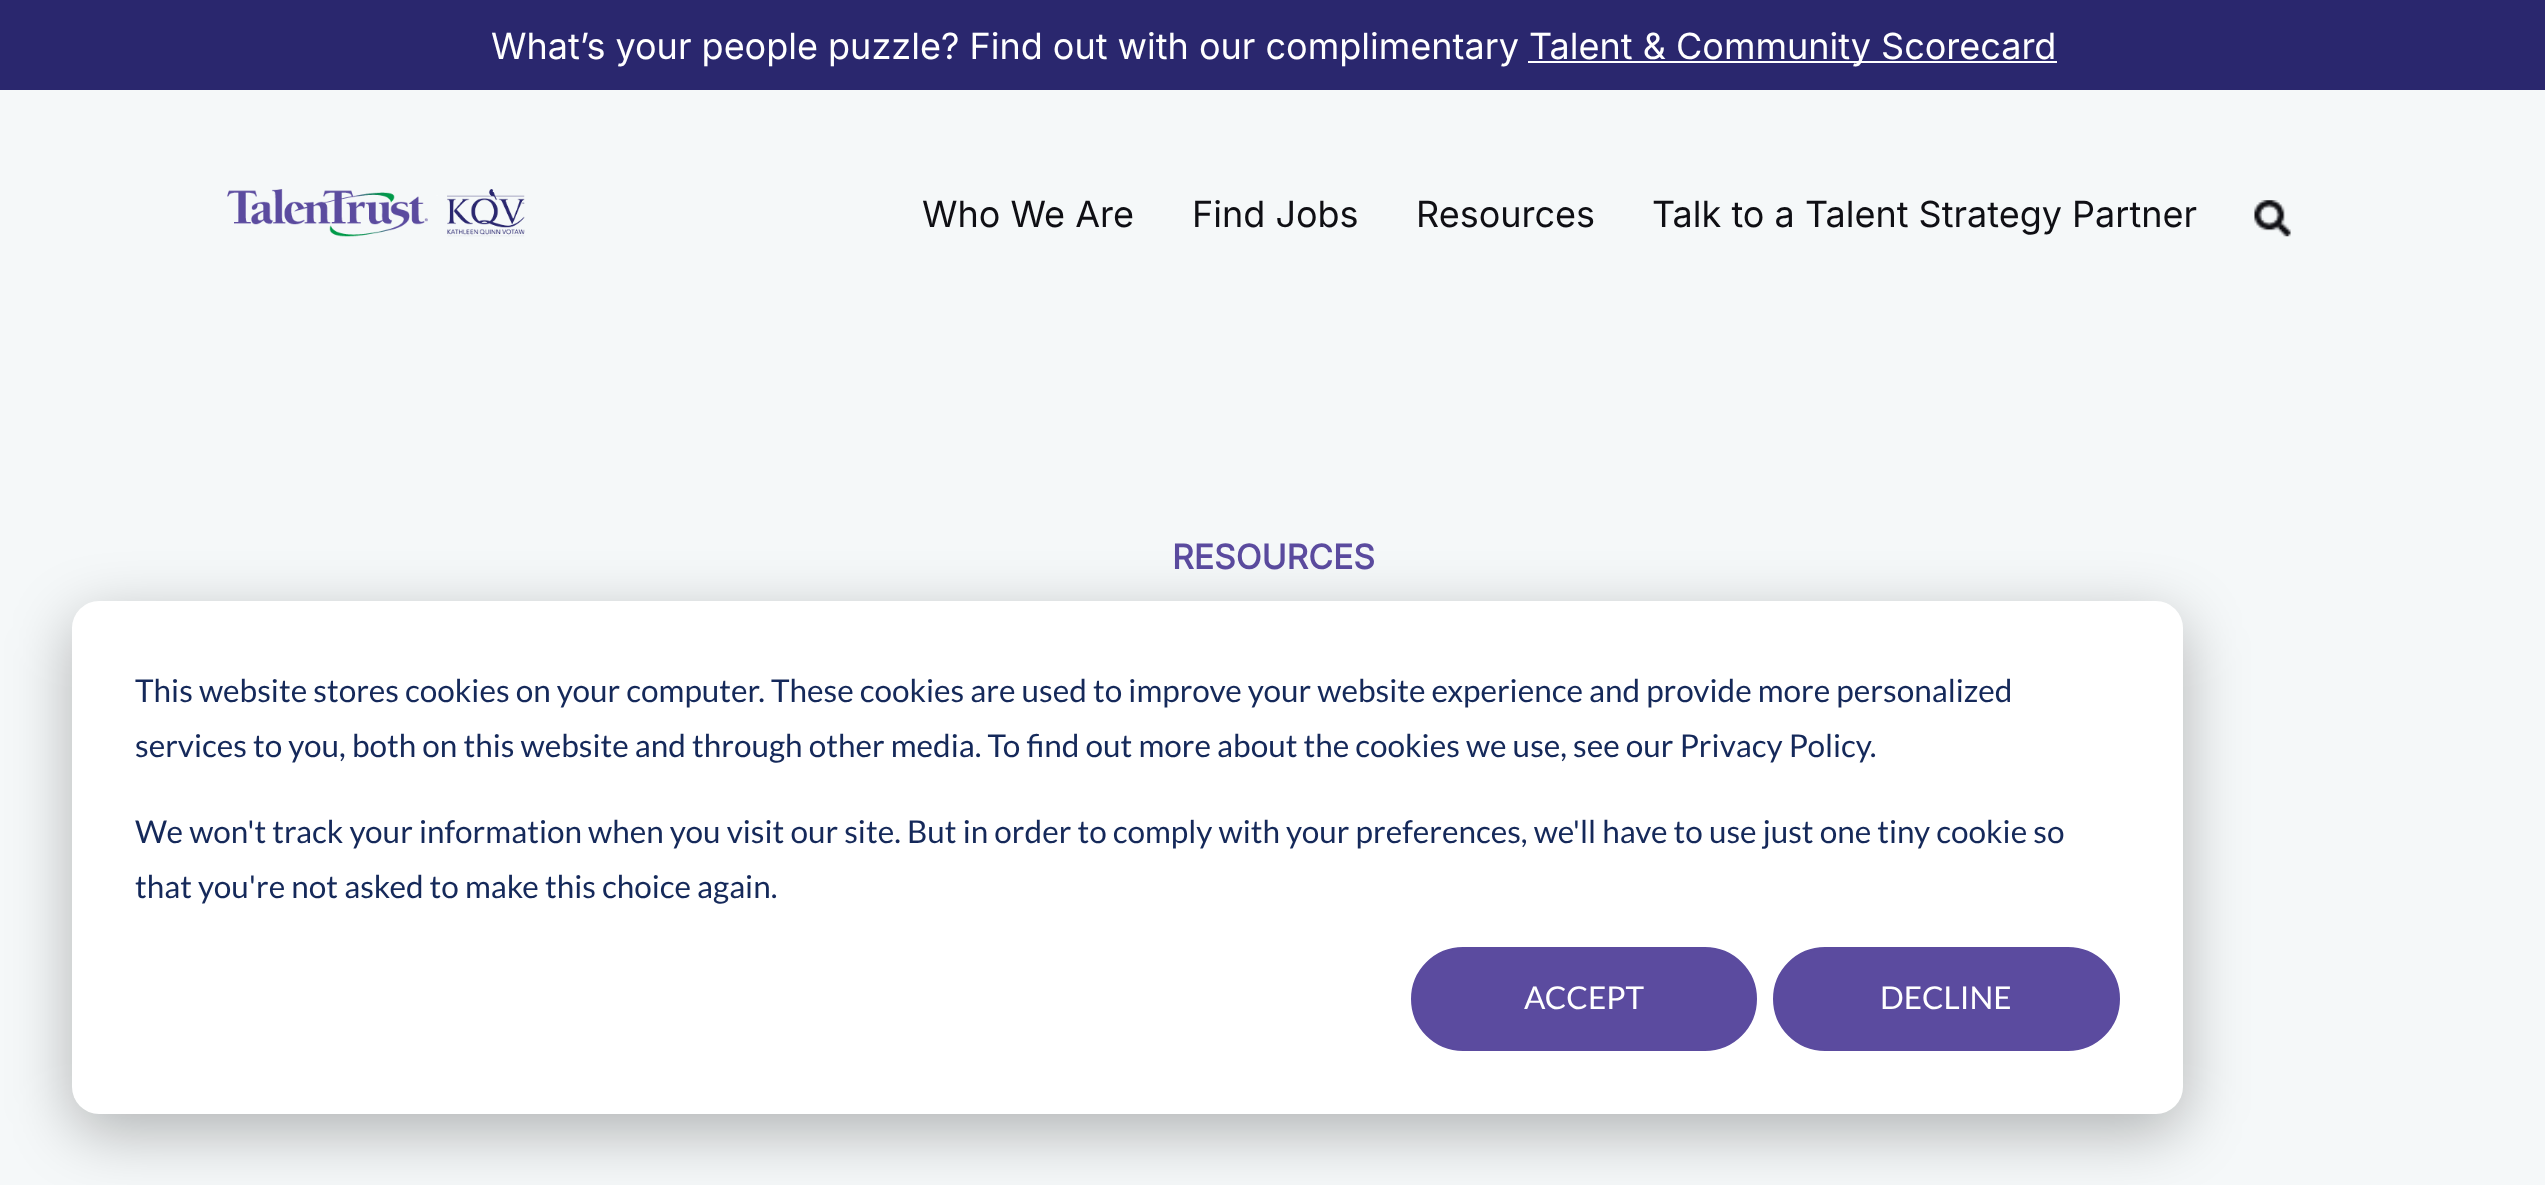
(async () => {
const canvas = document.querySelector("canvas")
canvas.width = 2545
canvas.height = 1185
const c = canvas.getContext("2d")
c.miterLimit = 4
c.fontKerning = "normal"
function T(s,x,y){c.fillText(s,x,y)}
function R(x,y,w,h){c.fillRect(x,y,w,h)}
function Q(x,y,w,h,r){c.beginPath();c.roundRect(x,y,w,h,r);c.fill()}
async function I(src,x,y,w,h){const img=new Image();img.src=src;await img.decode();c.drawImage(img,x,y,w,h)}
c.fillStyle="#f5f8f9"
R(0,0,2545,1185)
c.fillStyle="#2a276e"
R(0,0,2545,90)
c.font="36px Inter"
c.fillStyle="#fff"
T("What’s your people puzzle? Find out with our complimentary",491,59)
R(1528,61,529,2)
T("Talent & Community Scorecard",1529,59)
await I("1.png",227,189,298,48)
c.fillStyle="#0f0f14"
T("Who We Are",922,227)
T("Find Jobs",1192,227)
T("Resources",1416,227)
T("Talk to a Talent Strategy Partner",1652,227)
await I("2.png",2254,200,37,37)
c.font="bold 33.75px Inter"
c.fillStyle="#5b4b9f"
T("RESOURCES",1172,569)
c.fillStyle="#00000047"
c.filter="blur(31.5px)"
c.beginPath()
c.roundRect(72,619,2111,513,27)
c.fill()
c.filter="none"
c.fillStyle="#fff"
Q(72,601,2111,513,27)
c.font="31.5px Lato"
c.fillStyle="#15295a"
T("This website stores cookies on your computer. These cookies are used to improve your website experience and provide more personalized",135,702)
T("services to you, both on this website and through other media. To find out more about the cookies we use, see our Privacy Policy.",135,757)
T("We won't track your information when you visit our site. But in order to comply with your preferences, we'll have to use just one tiny cookie so",135,843)
T("that you're not asked to make this choice again.",135,898)
c.fillStyle="#5b4b9f"
c.beginPath()
c.roundRect(1412,948,344,102,51)
c.fill()
c.strokeStyle="#5b4b9f"
c.lineWidth=2
c.stroke()
c.fillStyle="#fff"
T("ACCEPT",1524,1009)
c.fillStyle="#5b4b9f"
c.beginPath()
c.roundRect(1774,948,345,102,51)
c.fill()
c.stroke()
c.fillStyle="#fff"
T("DECLINE",1880,1009)
})()
